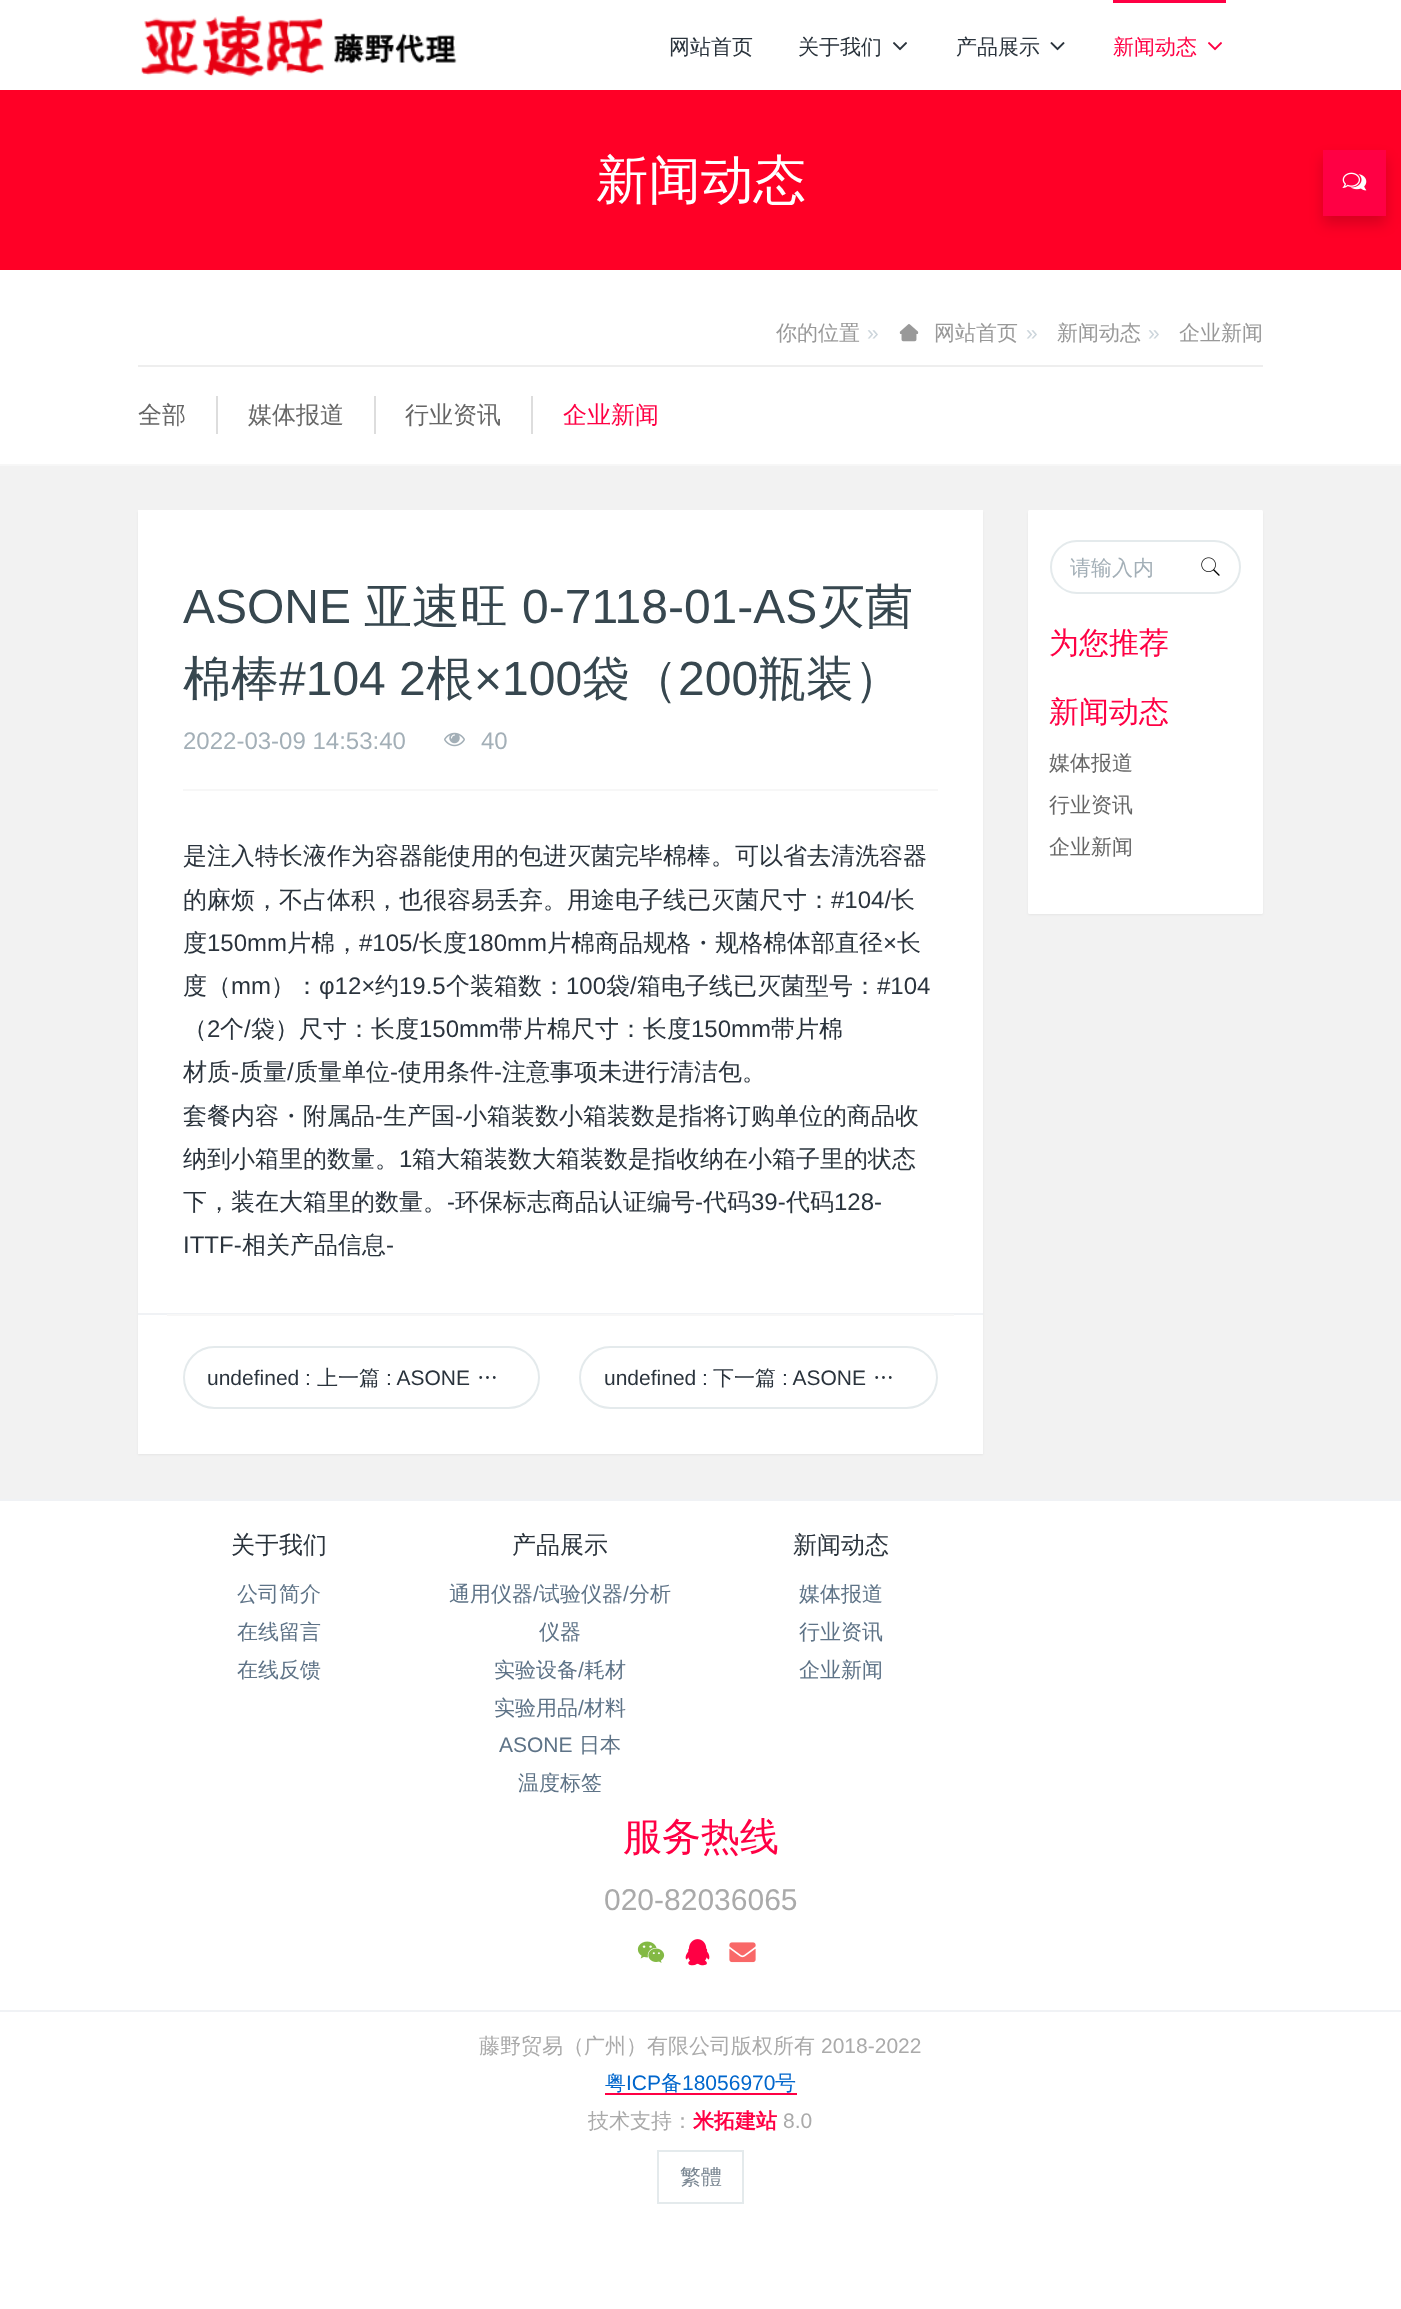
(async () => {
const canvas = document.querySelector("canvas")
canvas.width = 1401
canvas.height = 2309
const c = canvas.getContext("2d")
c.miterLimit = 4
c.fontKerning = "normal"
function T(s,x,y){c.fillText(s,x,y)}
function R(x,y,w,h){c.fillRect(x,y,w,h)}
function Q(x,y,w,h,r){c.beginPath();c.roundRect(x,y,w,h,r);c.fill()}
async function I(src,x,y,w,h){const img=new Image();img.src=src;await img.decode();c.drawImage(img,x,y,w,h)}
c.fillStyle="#fff"
R(0,0,1401,2309)
await I("1.png",141,15,316,62)
c.font="500 21px WenQuanYi Zen Hei"
c.fillStyle="#2a333c"
T("网站首页",669,54)
T("关于我们",798,54)
await I("2.png",893,42,14,9)
T("产品展示",956,54)
await I("3.png",1050,42,15,9)
c.fillStyle="#f04"
R(1113,0,113,3)
T("新闻动态",1113,54)
await I("4.png",1208,42,14,9)
c.fillStyle="#ff0026"
R(0,90,1401,180)
c.font="500 52.5px WenQuanYi Zen Hei"
c.fillStyle="#fff"
T("新闻动态",596,198)
c.fillStyle="#0400002b"
c.filter="blur(7px)"
c.beginPath()
c.rect(1323,158,63,66)
c.fill()
c.filter="none"
c.strokeStyle="#f04"
c.lineWidth=3
c.strokeRect(1324.5,151.5,60,63)
c.fillStyle="#f04"
R(1326,153,57,60)
await I("5.png",1342,172,25,19)
c.fillStyle="#eee"
R(138,365,1125,2)
c.font="500 21px WenQuanYi Zen Hei"
c.fillStyle="#999"
T("你的位置",776,340)
c.font="21px Liberation Sans"
c.fillStyle="#ccd5db"
T("»",867,340)
await I("6.png",899,324,20,18)
c.font="500 21px WenQuanYi Zen Hei"
c.fillStyle="#999"
T("网站首页",934,340)
c.font="21px Liberation Sans"
c.fillStyle="#ccd5db"
T("»",1026,340)
c.font="500 21px WenQuanYi Zen Hei"
c.fillStyle="#999"
T("新闻动态",1057,340)
c.font="21px Liberation Sans"
c.fillStyle="#ccd5db"
T("»",1148,340)
c.font="500 21px WenQuanYi Zen Hei"
c.fillStyle="#999"
T("企业新闻",1179,340)
c.font="500 24px WenQuanYi Zen Hei"
c.fillStyle="#666"
T("全部",138,423)
c.fillStyle="#ddd"
R(216,396,2,38)
c.fillStyle="#666"
T("媒体报道",248,423)
c.fillStyle="#ddd"
R(374,396,2,38)
c.fillStyle="#666"
T("行业资讯",405,423)
c.fillStyle="#ddd"
R(531,396,2,38)
c.fillStyle="#f04"
T("企业新闻",563,423)
c.fillStyle="#f2f2f2"
R(0,466,1401,1033)
c.fillStyle="#f7f7f7"
R(0,464,1401,2)
c.fillStyle="#0000000d"
c.filter="blur(1px)"
c.beginPath()
c.rect(138,512,845,943)
c.fill()
c.filter="none"
c.fillStyle="#fff"
R(138,510,845,944)
c.font="48px Liberation Sans"
c.fillStyle="#37474f"
T("ASONE",183,623)
c.font="500 48px WenQuanYi Zen Hei"
T("亚速旺",364,623)
c.font="48px Liberation Sans"
T("0-7118-01-AS",522,623)
c.font="500 48px WenQuanYi Zen Hei"
T("灭菌",817,623)
T("棉棒",183,695)
c.font="48px Liberation Sans"
T("#104 2",279,695)
c.font="500 48px WenQuanYi Zen Hei"
T("根",426,695)
c.font="48px Liberation Sans"
T("×100",474,695)
c.font="500 48px WenQuanYi Zen Hei"
T("袋（",582,695)
c.font="48px Liberation Sans"
T("200",678,695)
c.font="500 48px WenQuanYi Zen Hei"
T("瓶装）",758,695)
c.fillStyle="#f7f7f7"
R(183,789,755,2)
c.font="24px Liberation Sans"
c.fillStyle="#a3afb7"
T("2022-03-09 14:53:40",183,749)
await I("7.png",444,732,21,15)
T("40",481,749)
c.font="500 24px WenQuanYi Zen Hei"
c.fillStyle="#2a333c"
T("是注入特长液作为容器能使用的包进灭菌完毕棉棒。可以省去清洗容器",183,864)
T("的麻烦，不占体积，也很容易丢弃。用途电子线已灭菌尺寸：",183,908)
c.font="24px Liberation Sans"
T("#104/",831,908)
c.font="500 24px WenQuanYi Zen Hei"
T("长",891,908)
T("度",183,951)
c.font="24px Liberation Sans"
T("150mm",207,951)
c.font="500 24px WenQuanYi Zen Hei"
T("片棉，",287,951)
c.font="24px Liberation Sans"
T("#105/",359,951)
c.font="500 24px WenQuanYi Zen Hei"
T("长度",419,951)
c.font="24px Liberation Sans"
T("180mm",467,951)
c.font="500 24px WenQuanYi Zen Hei"
T("片棉商品规格・规格棉体部直径",547,951)
c.font="24px Liberation Sans"
T("×",883,951)
c.font="500 24px WenQuanYi Zen Hei"
T("长",897,951)
T("度（",183,994)
c.font="24px Liberation Sans"
T("mm",231,994)
c.font="500 24px WenQuanYi Zen Hei"
T("）：",271,994)
c.font="24px Liberation Sans"
T("φ12×",319,994)
c.font="500 24px WenQuanYi Zen Hei"
T("约",375,994)
c.font="24px Liberation Sans"
T("19.5",399,994)
c.font="500 24px WenQuanYi Zen Hei"
T("个装箱数：",446,994)
c.font="24px Liberation Sans"
T("100",566,994)
c.font="500 24px WenQuanYi Zen Hei"
T("袋",606,994)
c.font="24px Liberation Sans"
T("/",630,994)
c.font="500 24px WenQuanYi Zen Hei"
T("箱电子线已灭菌型号：",637,994)
c.font="24px Liberation Sans"
T("#104",877,994)
c.font="500 24px WenQuanYi Zen Hei"
T("（",183,1037)
c.font="24px Liberation Sans"
T("2",207,1037)
c.font="500 24px WenQuanYi Zen Hei"
T("个",220,1037)
c.font="24px Liberation Sans"
T("/",244,1037)
c.font="500 24px WenQuanYi Zen Hei"
T("袋）尺寸：长度",251,1037)
c.font="24px Liberation Sans"
T("150mm",419,1037)
c.font="500 24px WenQuanYi Zen Hei"
T("带片棉尺寸：长度",499,1037)
c.font="24px Liberation Sans"
T("150mm",691,1037)
c.font="500 24px WenQuanYi Zen Hei"
T("带片棉",771,1037)
T("材质",183,1080)
c.font="24px Liberation Sans"
T("-",231,1080)
c.font="500 24px WenQuanYi Zen Hei"
T("质量",239,1080)
c.font="24px Liberation Sans"
T("/",287,1080)
c.font="500 24px WenQuanYi Zen Hei"
T("质量单位",294,1080)
c.font="24px Liberation Sans"
T("-",390,1080)
c.font="500 24px WenQuanYi Zen Hei"
T("使用条件",398,1080)
c.font="24px Liberation Sans"
T("-",494,1080)
c.font="500 24px WenQuanYi Zen Hei"
T("注意事项未进行清洁包。",502,1080)
T("套餐内容・附属品",183,1124)
c.font="24px Liberation Sans"
T("-",375,1124)
c.font="500 24px WenQuanYi Zen Hei"
T("生产国",383,1124)
c.font="24px Liberation Sans"
T("-",455,1124)
c.font="500 24px WenQuanYi Zen Hei"
T("小箱装数小箱装数是指将订购单位的商品收",463,1124)
T("纳到小箱里的数量。",183,1167)
c.font="24px Liberation Sans"
T("1",399,1167)
c.font="500 24px WenQuanYi Zen Hei"
T("箱大箱装数大箱装数是指收纳在小箱子里的状态",412,1167)
T("下，装在大箱里的数量。",183,1210)
c.font="24px Liberation Sans"
T("-",447,1210)
c.font="500 24px WenQuanYi Zen Hei"
T("环保标志商品认证编号",455,1210)
c.font="24px Liberation Sans"
T("-",695,1210)
c.font="500 24px WenQuanYi Zen Hei"
T("代码",703,1210)
c.font="24px Liberation Sans"
T("39-",751,1210)
c.font="500 24px WenQuanYi Zen Hei"
T("代码",786,1210)
c.font="24px Liberation Sans"
T("128-",834,1210)
T("ITTF-",183,1253)
c.font="500 24px WenQuanYi Zen Hei"
T("相关产品信息",242,1253)
c.font="24px Liberation Sans"
T("-",386,1253)
c.fillStyle="#f0f2f5"
R(138,1313,845,2)
c.fillStyle="#f7f7f7"
R(167,1314,787,2)
c.beginPath()
c.roundRect(184,1347,355,61,30.5)
c.strokeStyle="#e4eaec"
c.lineWidth=2
c.stroke()
c.font="21px Liberation Sans"
c.fillStyle="#2a333c"
T("undefined :",207,1385)
c.font="500 21px WenQuanYi Zen Hei"
T("上一篇",317,1385)
c.font="21px Liberation Sans"
T(": ASONE",386,1385)
c.font="500 21px WenQuanYi Zen Hei"
T("…",477,1385)
c.beginPath()
c.roundRect(580,1347,357,61,30.5)
c.stroke()
c.font="21px Liberation Sans"
T("undefined :",604,1385)
c.font="500 21px WenQuanYi Zen Hei"
T("下一篇",713,1385)
c.font="21px Liberation Sans"
T(": ASONE",782,1385)
c.font="500 21px WenQuanYi Zen Hei"
T("…",873,1385)
c.fillStyle="#0000000d"
c.filter="blur(1px)"
c.beginPath()
c.roundRect(1028,512,235,403,1.5)
c.fill()
c.filter="none"
c.fillStyle="#fff"
Q(1028,510,235,404,1.5)
c.beginPath()
c.roundRect(1051,541,189,52,26)
c.stroke()
c.fillStyle="#a3afb7"
T("请输入内",1070,575)
await I("8.png",1201,557,19,19)
c.font="500 30px WenQuanYi Zen Hei"
c.fillStyle="#f04"
T("为您推荐",1049,653)
T("新闻动态",1049,722)
c.font="500 21px WenQuanYi Zen Hei"
c.fillStyle="#666"
T("媒体报道",1049,770)
T("行业资讯",1049,812)
T("企业新闻",1049,854)
c.fillStyle="#f0f2f5"
R(0,1499,1401,2)
c.font="500 24px WenQuanYi Zen Hei"
c.fillStyle="#2a333c"
T("关于我们",231,1553)
c.font="500 21px WenQuanYi Zen Hei"
c.fillStyle="#5e7387"
T("公司简介",237,1601)
T("在线留言",237,1639)
T("在线反馈",237,1677)
c.font="500 24px WenQuanYi Zen Hei"
c.fillStyle="#2a333c"
T("产品展示",512,1553)
c.font="500 21px WenQuanYi Zen Hei"
c.fillStyle="#5e7387"
T("通用仪器",449,1601)
c.font="21px Liberation Sans"
T("/",533,1601)
c.font="500 21px WenQuanYi Zen Hei"
T("试验仪器",539,1601)
c.font="21px Liberation Sans"
T("/",623,1601)
c.font="500 21px WenQuanYi Zen Hei"
T("分析",629,1601)
T("仪器",539,1639)
T("实验设备",494,1677)
c.font="21px Liberation Sans"
T("/",578,1677)
c.font="500 21px WenQuanYi Zen Hei"
T("耗材",584,1677)
T("实验用品",494,1715)
c.font="21px Liberation Sans"
T("/",578,1715)
c.font="500 21px WenQuanYi Zen Hei"
T("材料",584,1715)
c.font="21px Liberation Sans"
T("ASONE",499,1752)
c.font="500 21px WenQuanYi Zen Hei"
T("日本",579,1752)
T("温度标签",518,1790)
c.font="500 24px WenQuanYi Zen Hei"
c.fillStyle="#2a333c"
T("新闻动态",793,1553)
c.font="500 21px WenQuanYi Zen Hei"
c.fillStyle="#5e7387"
T("媒体报道",799,1601)
T("行业资讯",799,1639)
T("企业新闻",799,1677)
c.font="500 39px WenQuanYi Zen Hei"
c.fillStyle="#f04"
T("服务热线",623,1850)
c.font="30px Liberation Sans"
c.fillStyle="#aaa"
T("020-82036065",604,1910)
await I("9.png",637,1941,28,22)
await I("10.png",685,1939,25,27)
await I("11.png",729,1942,27,21)
c.fillStyle="#f0f2f5"
R(0,2010,1401,2)
c.font="500 21px WenQuanYi Zen Hei"
c.fillStyle="#aaa"
T("藤野贸易（广州）有限公司版权所有",479,2053)
c.font="21px Liberation Sans"
T("2018-2022",821,2053)
c.font="500 21px WenQuanYi Zen Hei"
c.fillStyle="#06c"
T("粤",605,2090)
c.fillStyle="#f04"
R(605,2093,192,2)
c.font="21px Liberation Sans"
c.fillStyle="#06c"
T("ICP",626,2090)
c.font="500 21px WenQuanYi Zen Hei"
T("备",661,2090)
c.font="21px Liberation Sans"
T("18056970",682,2090)
c.font="500 21px WenQuanYi Zen Hei"
T("号",775,2090)
c.fillStyle="#aaa"
T("技术支持：",588,2128)
c.font="bold 21px WenQuanYi Zen Hei"
c.fillStyle="#f04"
T("米拓建站",693,2128)
c.font="21px Liberation Sans"
c.fillStyle="#aaa"
T("8.0",783,2128)
c.strokeRect(658,2151,85,52)
c.font="500 21px WenQuanYi Zen Hei"
c.fillStyle="#76838f"
T("繁體",680,2184)
})()
